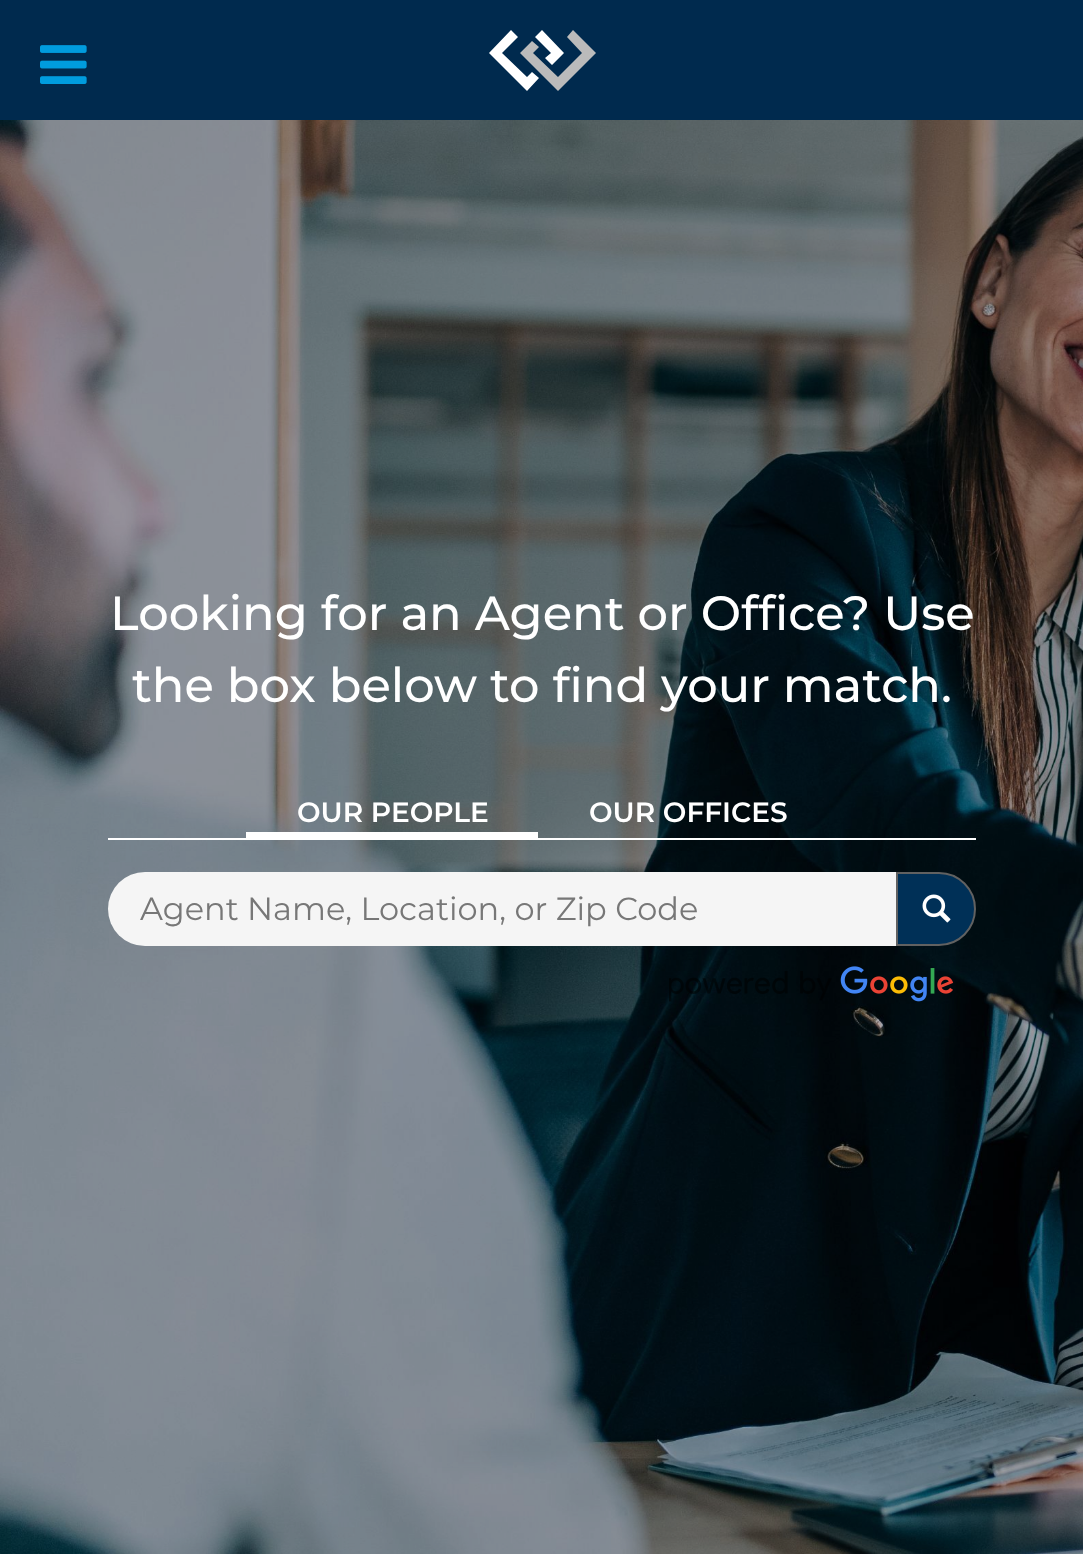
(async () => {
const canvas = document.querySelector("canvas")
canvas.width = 1083
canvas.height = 1554
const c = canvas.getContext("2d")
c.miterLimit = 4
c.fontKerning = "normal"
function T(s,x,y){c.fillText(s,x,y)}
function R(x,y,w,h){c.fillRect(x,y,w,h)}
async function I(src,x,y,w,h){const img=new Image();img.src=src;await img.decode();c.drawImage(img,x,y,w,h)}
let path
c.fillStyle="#fff"
R(0,0,1083,1554)
c.fillStyle="#002a4e"
R(0,0,1083,120)
await I("1.png",40,45,47,39)
c.fillStyle="#bbb"
path = new Path2D("M596 53l-38 38l-38-38l12-12l7 6l-6 6l25 24l24-24l-15-16l6-7z")
c.fill(path)
c.fillStyle="#fff"
path = new Path2D("M542 30l-7 7l16 16l-6 5l7 7l12-12zm-10 42l7 6l-12 13l-38-38l22-23l7 7l-16 16l25 24z")
c.fill(path)
await I("2.png",0,120,1083,1434)
c.font="500 48px Montserrat"
T("Looking for an Agent or Office? Use",110,630)
T("the box below to find your match.",132,702)
R(108,838,868,2)
R(246,832,292,6)
c.font="600 28px Montserrat"
T("OUR PEOPLE",297,822)
T("OUR OFFICES",589,822)
c.fillStyle="#f5f5f5"
c.beginPath()
c.roundRect(108,872,790,74,[37,0,0,37])
c.fill()
c.font="32px Montserrat"
c.fillStyle="#777"
T("Agent Name, Location, or Zip Code",140,920)
c.fillStyle="#003057"
c.beginPath()
c.roundRect(897,873,78,72,[0,36,36,0])
c.fill()
c.strokeStyle="#616161"
c.lineWidth=2
c.stroke()
await I("3.png",922,894,29,29)
await I("4.png",669,966,285,36)
})()
